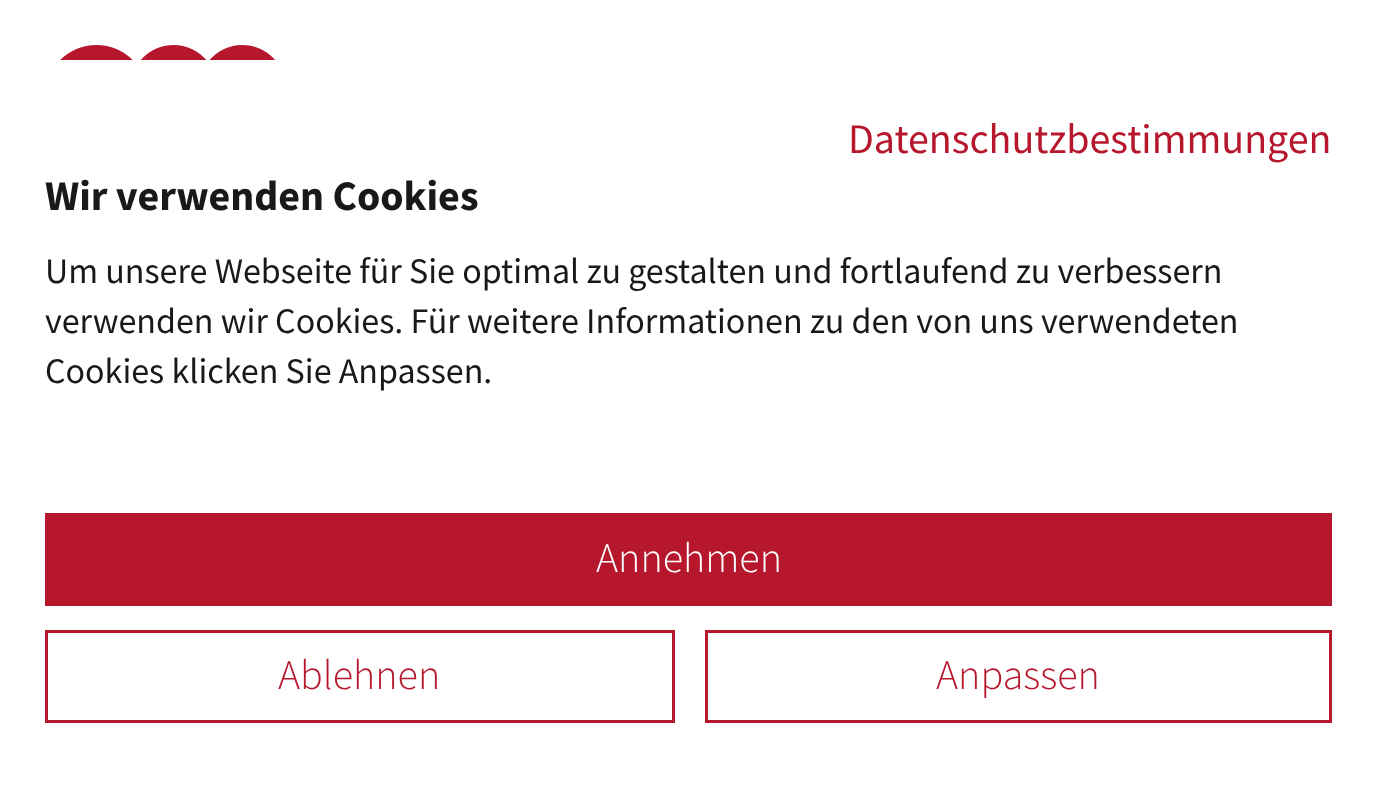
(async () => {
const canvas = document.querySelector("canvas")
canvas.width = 1377
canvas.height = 786
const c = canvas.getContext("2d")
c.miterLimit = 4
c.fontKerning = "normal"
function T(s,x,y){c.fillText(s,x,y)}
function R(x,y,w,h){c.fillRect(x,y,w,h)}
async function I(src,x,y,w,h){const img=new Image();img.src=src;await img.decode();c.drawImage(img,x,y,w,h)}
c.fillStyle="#fff"
R(0,0,1377,786)
await I("1.png",60,45,215,15)
c.font="42px Source Sans Pro"
c.fillStyle="#b6172d"
T("Datenschutzbestimmungen",848,153)
c.font="bold 42px Source Sans Pro"
c.fillStyle="#191919"
T("Wir verwenden Cookies",45,210)
c.font="36px Source Sans Pro"
T("Um unsere Webseite für Sie optimal zu gestalten und fortlaufend zu verbessern",45,283)
T("verwenden wir Cookies. Für weitere Informationen zu den von uns verwendeten",45,333)
T("Cookies klicken Sie Anpassen.",45,383)
c.fillStyle="#b6172d"
R(45,513,1287,93)
c.font="300 42px Source Sans Pro"
c.fillStyle="#fff"
T("Annehmen",596,572)
c.strokeStyle="#b6172d"
c.lineWidth=3
c.strokeRect(46.5,631.5,627,90)
c.fillStyle="#b6172d"
T("Ablehnen",278,689)
c.strokeRect(706.5,631.5,624,90)
T("Anpassen",936,689)
})()
